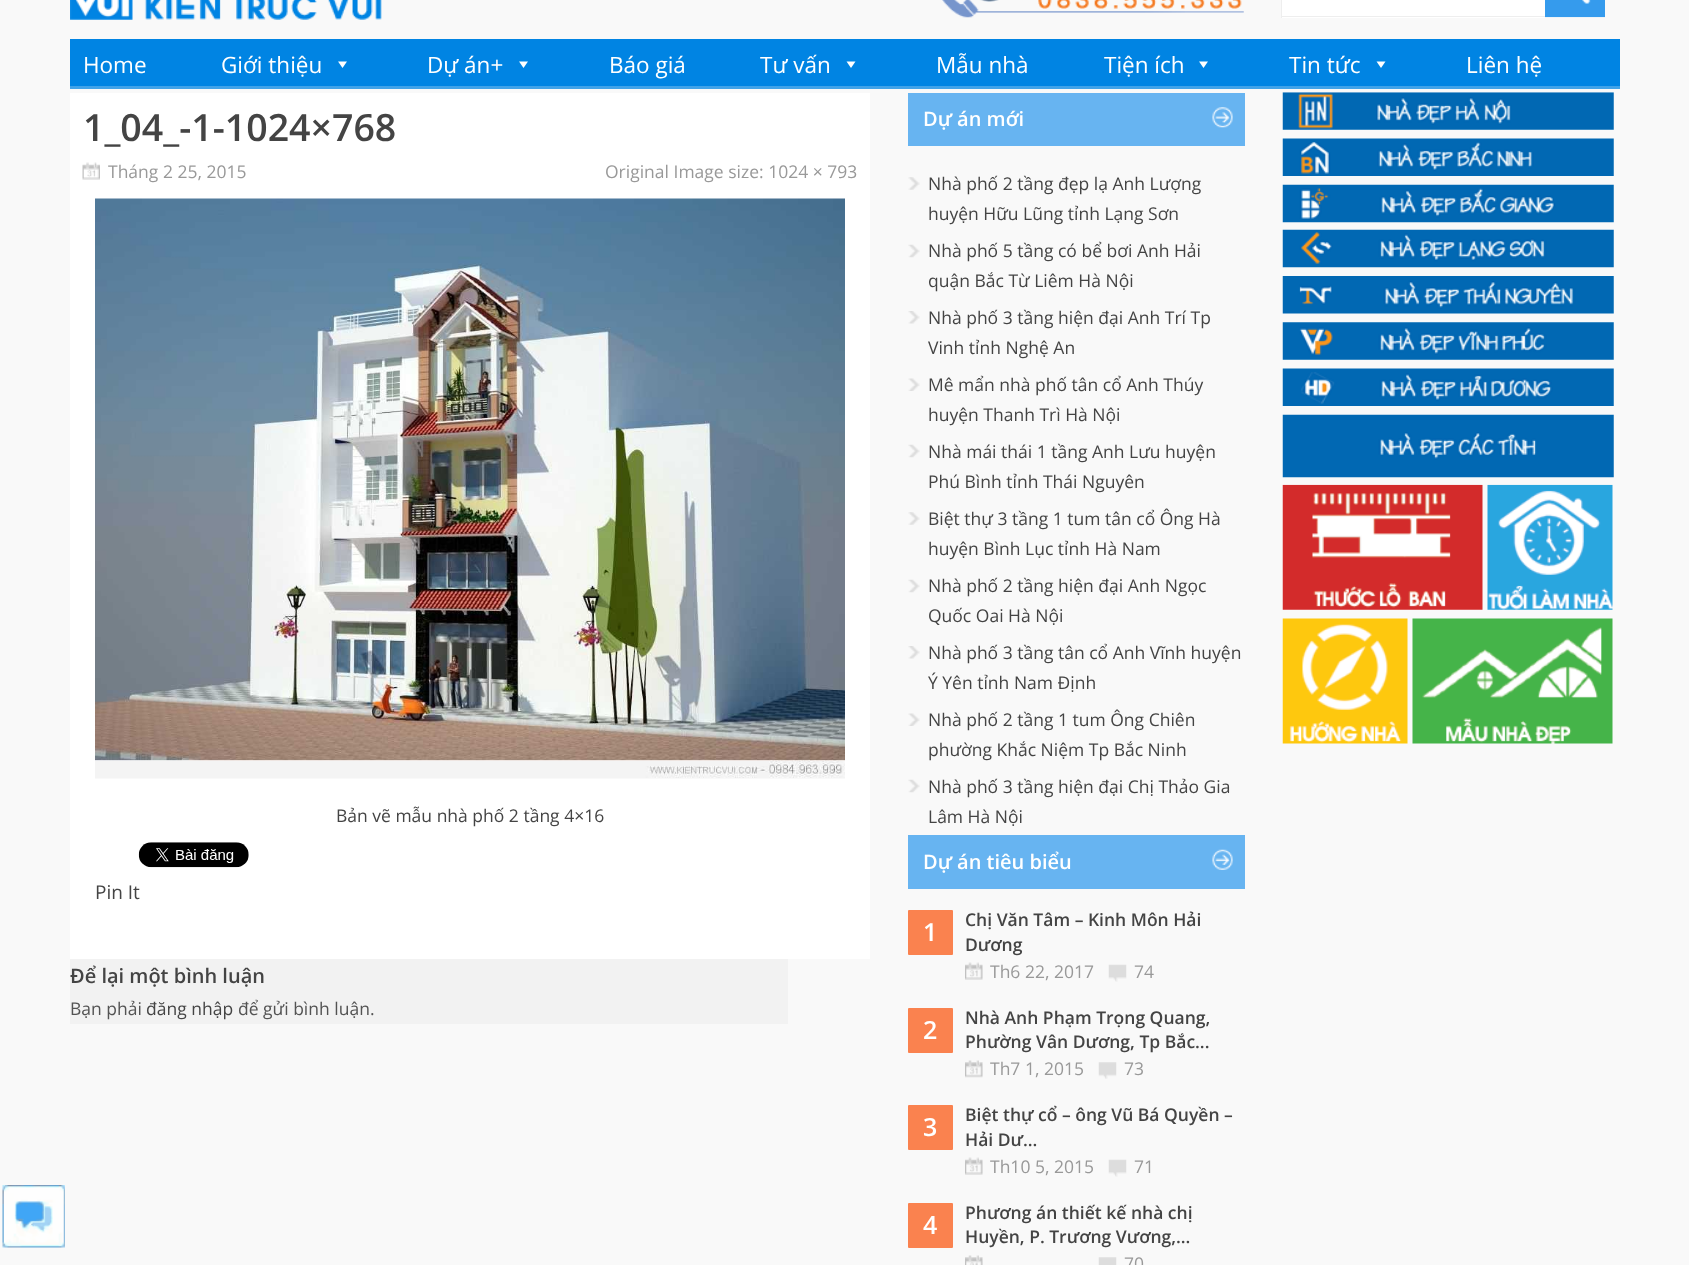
(async () => {
const canvas = document.querySelector("canvas")
canvas.width = 1689
canvas.height = 1265
const c = canvas.getContext("2d")
c.miterLimit = 4
c.fontKerning = "normal"
function T(s,x,y){c.fillText(s,x,y)}
function R(x,y,w,h){c.fillRect(x,y,w,h)}
function Q(x,y,w,h,r){c.beginPath();c.roundRect(x,y,w,h,r);c.fill()}
async function I(src,x,y,w,h){const img=new Image();img.src=src;await img.decode();c.drawImage(img,x,y,w,h)}
let gradient, path
c.fillStyle="#f9f9f9"
R(0,0,1689,1265)
await I("1.png",70,0,312,20)
await I("2.png",942,0,302,18)
c.fillStyle="#fff"
R(1282,0,263,18)
c.fillStyle="#eee"
R(1281,16,264,1)
R(1281,0,1,18)
await I("3.png",1545,0,60,18)
c.fillStyle="#0084e3"
R(70,40,1550,46)
gradient = c.createLinearGradient(845,39,845,89)
gradient.addColorStop(0,"#0084e3")
gradient.addColorStop(1,"#0084e3ba")
c.fillStyle = gradient
R(70,39,1550,50)
c.font="22.5px Open Sans"
c.fillStyle="#fff"
T("Home",83,73)
T("Giới thiệu",221,73)
path = new Path2D("M347 61.5l-4.5 6.5l-4.5-6.5z")
c.fill(path)
T("Dự án+",427,73)
path = new Path2D("M528 61.5l-4.5 6.5l-4.5-6.5z")
c.fill(path)
T("Báo giá",609,73)
T("Tư vấn",760,73)
path = new Path2D("M855.5 61.5l-4.5 6.5l-4.5-6.5z")
c.fill(path)
T("Mẫu nhà",936,73)
T("Tiện ích",1104,73)
path = new Path2D("M1208 61.5l-4.5 6.5l-4.5-6.5z")
c.fill(path)
T("Tin tức",1289,73)
path = new Path2D("M1385.5 61.5l-4.5 6.5l-4.5-6.5z")
c.fill(path)
T("Liên hệ",1466,73)
R(70,93,800,866)
c.font="600 37.5px Open Sans"
c.fillStyle="#444"
T("1_04_-1-1024×768",83,141)
await I("4.png",82,162,18,18)
c.font="17.5px Open Sans"
c.fillStyle="#999"
T("Tháng 2 25, 2015",108,178)
T("Original Image size: 1024 × 793",605,178)
await I("5.png",95,198,750,581)
c.fillStyle="#444"
T("Bản vẽ mẫu nhà phố 2 tầng 4×16",336,822)
await I("6.png",138,842,111,26)
c.font="19px Open Sans"
T("Pin It",95,899)
c.fillStyle="#f2f2f2"
R(70,959,718,65)
c.font="600 20px Open Sans"
c.fillStyle="#444"
T("Để lại một bình luận",70,983)
c.font="17.5px Open Sans"
c.fillStyle="#535353"
T("Bạn phải",70,1015)
c.fillStyle="#444"
T("đăng nhập",146,1015)
c.fillStyle="#535353"
T("để gửi bình luận.",238,1015)
c.fillStyle="#67b4f1"
R(908,93,337,53)
await I("7.png",1212,107,21,21)
c.font="600 20px Open Sans"
c.fillStyle="#fff"
T("Dự án mới",923,126)
await I("8.png",908,177,12,13)
c.font="17.5px Open Sans"
c.fillStyle="#444"
T("Nhà phố 2 tầng đẹp lạ Anh Lượng",928,190)
T("huyện Hữu Lũng tỉnh Lạng Sơn",928,220)
await I("9.png",908,244,12,14)
T("Nhà phố 5 tầng có bể bơi Anh Hải",928,257)
T("quận Bắc Từ Liêm Hà Nội",928,287)
await I("10.png",908,311,12,13)
T("Nhà phố 3 tầng hiện đại Anh Trí Tp",928,324)
T("Vinh tỉnh Nghệ An",928,354)
await I("11.png",908,378,12,13)
T("Mê mẩn nhà phố tân cổ Anh Thúy",928,391)
T("huyện Thanh Trì Hà Nội",928,421)
await I("12.png",908,444,12,14)
T("Nhà mái thái 1 tầng Anh Lưu huyện",928,458)
T("Phú Bình tỉnh Thái Nguyên",928,488)
await I("8.png",908,512,12,13)
T("Biệt thự 3 tầng 1 tum tân cổ Ông Hà",928,525)
T("huyện Bình Lục tỉnh Hà Nam",928,555)
await I("12.png",908,579,12,14)
T("Nhà phố 2 tầng hiện đại Anh Ngọc",928,592)
T("Quốc Oai Hà Nội",928,622)
await I("10.png",908,646,12,13)
T("Nhà phố 3 tầng tân cổ Anh Vĩnh huyện",928,659)
T("Ý Yên tỉnh Nam Định",928,689)
await I("11.png",908,713,12,13)
T("Nhà phố 2 tầng 1 tum Ông Chiên",928,726)
T("phường Khắc Niệm Tp Bắc Ninh",928,756)
await I("12.png",908,779,12,14)
T("Nhà phố 3 tầng hiện đại Chị Thảo Gia",928,793)
T("Lâm Hà Nội",928,823)
c.fillStyle="#67b4f1"
R(908,835,337,54)
await I("13.png",1212,849,21,21)
c.font="600 20px Open Sans"
c.fillStyle="#fff"
T("Dự án tiêu biểu",923,869)
c.fillStyle="#fa824f"
Q(908,910,45,45,1)
c.font="600 25px Open Sans"
c.fillStyle="#fff"
T("1",923,941)
c.font="600 17.5px Open Sans"
c.fillStyle="#444"
T("Chị Văn Tâm – Kinh Môn Hải",965,926)
T("Dương",965,951)
await I("14.png",965,962,18,18)
c.font="17.5px Open Sans"
c.fillStyle="#999"
T("Th6 22, 2017",990,978)
await I("15.png",1108,964,19,18)
T("74",1134,978)
c.fillStyle="#fa824f"
Q(908,1008,45,45,1)
c.font="600 25px Open Sans"
c.fillStyle="#fff"
T("2",923,1039)
c.font="600 17.5px Open Sans"
c.fillStyle="#444"
T("Nhà Anh Phạm Trọng Quang,",965,1024)
T("Phường Vân Dương, Tp Bắc...",965,1048)
await I("16.png",965,1060,18,18)
c.font="17.5px Open Sans"
c.fillStyle="#999"
T("Th7 1, 2015",990,1075)
await I("17.png",1098,1062,19,17)
T("73",1124,1075)
c.fillStyle="#fa824f"
Q(908,1105,45,45,1)
c.font="600 25px Open Sans"
c.fillStyle="#fff"
T("3",923,1136)
c.font="600 17.5px Open Sans"
c.fillStyle="#444"
T("Biệt thự cổ – ông Vũ Bá Quyền –",965,1121)
T("Hải Dư...",965,1146)
await I("14.png",965,1157,18,18)
c.font="17.5px Open Sans"
c.fillStyle="#999"
T("Th10 5, 2015",990,1173)
await I("15.png",1108,1159,19,18)
T("71",1134,1173)
c.fillStyle="#fa824f"
Q(908,1203,45,45,1)
c.font="600 25px Open Sans"
c.fillStyle="#fff"
T("4",923,1234)
c.font="600 17.5px Open Sans"
c.fillStyle="#444"
T("Phương án thiết kế nhà chị",965,1219)
T("Huyền, P. Trương Vương,...",965,1243)
await I("18.png",965,1255,18,10)
await I("19.png",1098,1257,19,8)
c.font="17.5px Open Sans"
c.fillStyle="#999"
T("70",1124,1270)
await I("20.png",1282,92,332,38)
await I("21.png",1282,138,332,38)
await I("22.png",1282,184,332,39)
await I("23.png",1282,229,332,39)
await I("24.png",1282,276,332,38)
await I("25.png",1282,322,332,38)
await I("26.png",1282,368,332,38)
await I("27.png",1282,414,332,64)
await I("28.png",1282,484,201,126)
await I("29.png",1487,484,126,126)
await I("30.png",1282,618,126,126)
await I("31.png",1412,618,201,126)
await I("32.png",2,1185,63,63)
})()
